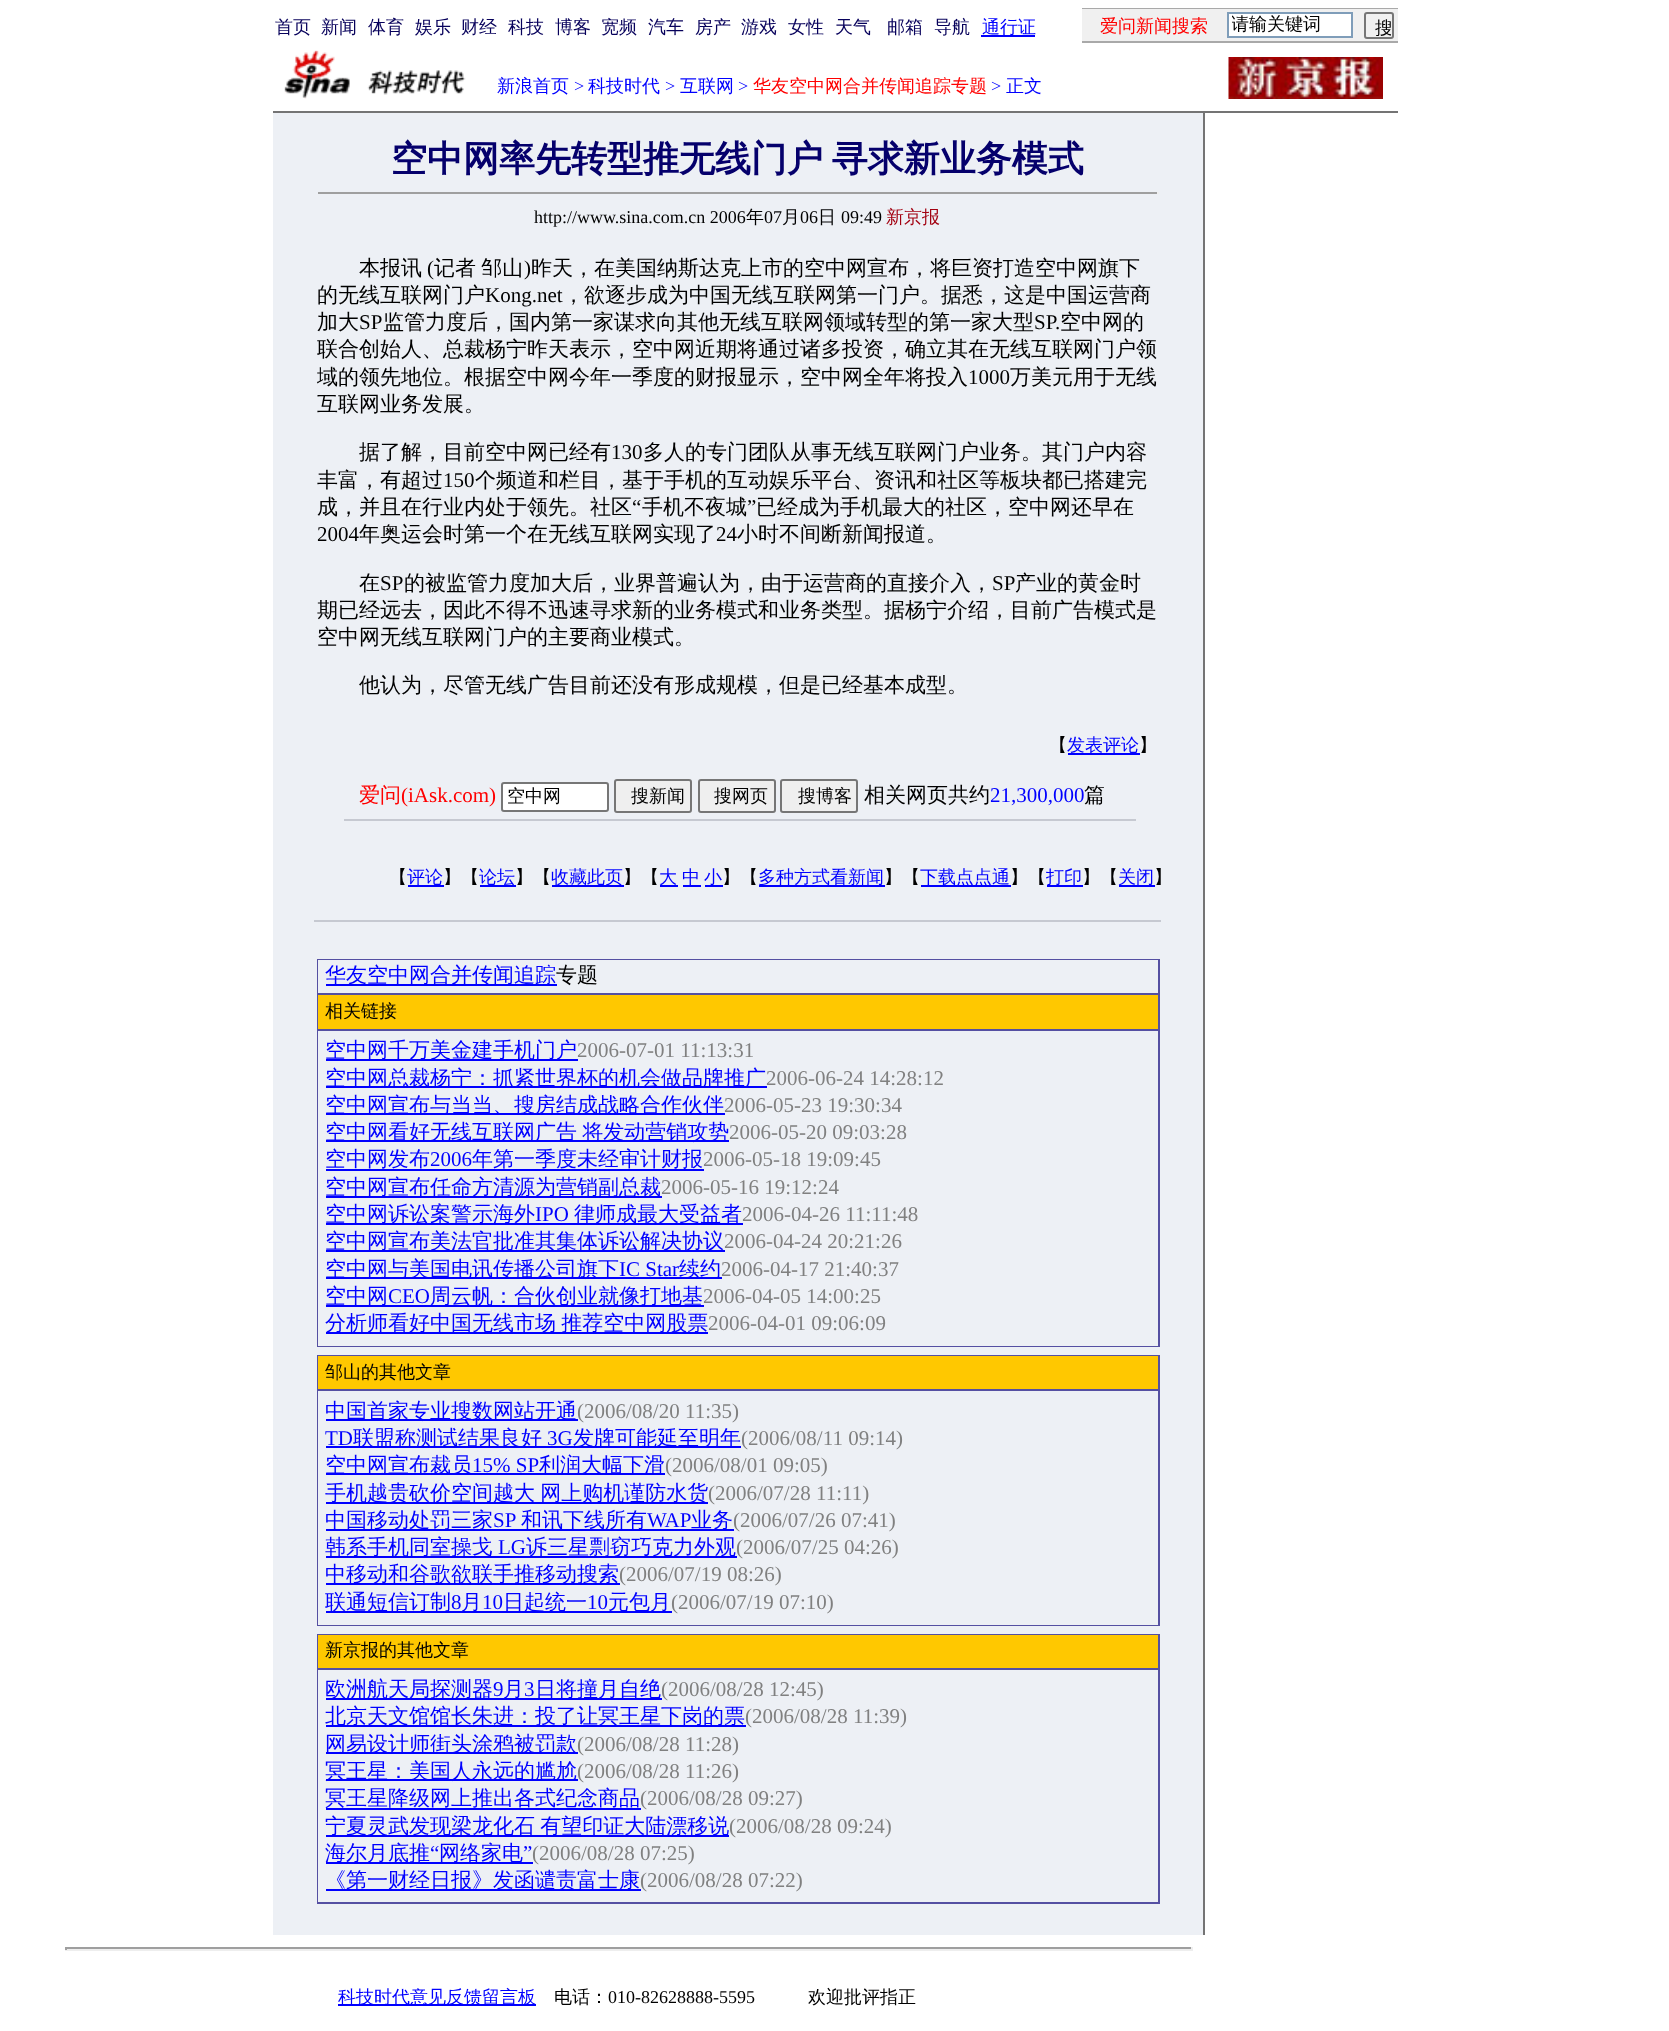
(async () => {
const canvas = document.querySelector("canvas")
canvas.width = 1669
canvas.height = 2031
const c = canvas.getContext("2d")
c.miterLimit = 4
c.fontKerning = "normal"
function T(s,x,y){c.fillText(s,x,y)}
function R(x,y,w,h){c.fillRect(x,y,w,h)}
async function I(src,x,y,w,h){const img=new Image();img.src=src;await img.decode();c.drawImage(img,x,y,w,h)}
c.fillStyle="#fff"
R(0,0,1669,2031)
c.font="500 18px WenQuanYi Zen Hei"
c.fillStyle="#07015b"
T("首页",275,33)
T("新闻",321,33)
T("体育",368,33)
T("娱乐",415,33)
T("财经",461,33)
T("科技",508,33)
T("博客",555,33)
T("宽频",601,33)
T("汽车",648,33)
T("房产",695,33)
T("游戏",741,33)
T("女性",788,33)
T("天气",835,33)
T("邮箱",887,33)
T("导航",934,33)
c.fillStyle="#00f"
R(981,35,54,2)
T("通行证",982,33)
c.fillStyle="#a9a9a9"
R(1082,8,316,1)
c.fillStyle="#f0f0f0"
R(1082,9,316,32)
c.fillStyle="#f00"
T("爱问新闻搜索",1100,32)
c.fillStyle="#fff"
c.beginPath()
c.rect(1228,13,124,24)
c.fill()
c.strokeStyle="#7f9db9"
c.lineWidth=2
c.stroke()
c.save()
c.beginPath()
c.rect(1232,14,117,22)
c.clip()
c.fillStyle="#000"
T("请输关键词",1231,30)
c.restore()
c.beginPath()
c.roundRect(1365,13,28,25,2)
c.strokeStyle="#767676"
c.stroke()
c.save()
c.beginPath()
c.rect(1367,15,24,21)
c.clip()
c.fillStyle="#000"
T("搜",1375,34)
c.restore()
c.fillStyle="#a9a9a9"
R(1082,41,316,2)
await I("1.png",284,50,182,49)
c.fillStyle="#00f"
T("新浪首页",497,92)
c.font="18px Liberation Serif"
T(">",574,92)
c.font="500 18px WenQuanYi Zen Hei"
T("科技时代",588,92)
c.font="18px Liberation Serif"
T(">",665,92)
c.font="500 18px WenQuanYi Zen Hei"
T("互联网",680,92)
c.font="18px Liberation Serif"
T(">",738,92)
c.font="500 18px WenQuanYi Zen Hei"
c.fillStyle="#f00"
T("华友空中网合并传闻追踪专题",753,92)
c.font="18px Liberation Serif"
c.fillStyle="#00f"
T(">",991,92)
c.font="500 18px WenQuanYi Zen Hei"
T("正文",1006,92)
await I("2.png",1228,57,155,42)
c.fillStyle="#747474"
R(273,111,1125,2)
c.fillStyle="#edf0f5"
R(273,113,930,1822)
c.wordSpacing="-2px"
c.font="bold 36px WenQuanYi Zen Hei"
c.fillStyle="#05006c"
T("空中网率先转型推无线门户 寻求新业务模式",391,171)
c.fillStyle="#9f9f9f"
R(318,192,840,2)
c.fillStyle="#eee"
R(1157,192,2,2)
c.wordSpacing="0px"
c.font="18px Liberation Serif"
c.fillStyle="#000"
T("http://www.sina.com.cn 2006",534,223)
c.font="500 18px WenQuanYi Zen Hei"
T("年",746,223)
c.font="18px Liberation Serif"
T("07",764,223)
c.font="500 18px WenQuanYi Zen Hei"
T("月",782,223)
c.font="18px Liberation Serif"
T("06",800,223)
c.font="500 18px WenQuanYi Zen Hei"
T("日",818,223)
c.font="18px Liberation Serif"
T("09:49",841,223)
c.font="500 18px WenQuanYi Zen Hei"
c.fillStyle="#a20010"
T("新京报",886,223)
c.font="500 21px WenQuanYi Zen Hei"
c.fillStyle="#000"
T("本报讯",359,275)
c.font="21px Liberation Serif"
T("(",427,275)
c.wordSpacing="-1px"
c.font="500 21px WenQuanYi Zen Hei"
T("记者 邹山",434,275)
c.wordSpacing="0px"
c.font="21px Liberation Serif"
T(")",524,275)
c.font="500 21px WenQuanYi Zen Hei"
T("昨天，在美国纳斯达克上市的空中网宣布，将巨资打造空中网旗下",531,275)
T("的无线互联网门户",317,302)
c.font="21px Liberation Serif"
T("Kong.net",485,302)
c.font="500 21px WenQuanYi Zen Hei"
T("，欲逐步成为中国无线互联网第一门户。据悉，这是中国运营商",563,302)
T("加大",317,329)
c.font="21px Liberation Serif"
T("SP",359,329)
c.font="500 21px WenQuanYi Zen Hei"
T("监管力度后，国内第一家谋求向其他无线互联网领域转型的第一家大型",383,329)
c.font="21px Liberation Serif"
T("SP.",1034,329)
c.font="500 21px WenQuanYi Zen Hei"
T("空中网的",1060,329)
T("联合创始人、总裁杨宁昨天表示，空中网近期将通过诸多投资，确立其在无线互联网门户领",317,356)
T("域的领先地位。根据空中网今年一季度的财报显示，空中网全年将投入",317,384)
c.font="21px Liberation Serif"
T("1000",968,384)
c.font="500 21px WenQuanYi Zen Hei"
T("万美元用于无线",1010,384)
T("互联网业务发展。",317,411)
T("据了解，目前空中网已经有",359,459)
c.font="21px Liberation Serif"
T("130",611,459)
c.font="500 21px WenQuanYi Zen Hei"
T("多人的专门团队从事无线互联网门户业务。其门户内容",643,459)
T("丰富，有超过",317,487)
c.font="21px Liberation Serif"
T("150",443,487)
c.font="500 21px WenQuanYi Zen Hei"
T("个频道和栏目，基于手机的互动娱乐平台、资讯和社区等板块都已搭建完",475,487)
T("成，并且在行业内处于领先。社区",317,514)
c.font="21px Liberation Serif"
T("“",632,514)
c.font="500 21px WenQuanYi Zen Hei"
T("手机不夜城",642,514)
c.font="21px Liberation Serif"
T("”",747,514)
c.font="500 21px WenQuanYi Zen Hei"
T("已经成为手机最大的社区，空中网还早在",756,514)
c.font="21px Liberation Serif"
T("2004",317,541)
c.font="500 21px WenQuanYi Zen Hei"
T("年奥运会时第一个在无线互联网实现了",359,541)
c.font="21px Liberation Serif"
T("24",716,541)
c.font="500 21px WenQuanYi Zen Hei"
T("小时不间断新闻报道。",737,541)
T("在",359,590)
c.font="21px Liberation Serif"
T("SP",380,590)
c.font="500 21px WenQuanYi Zen Hei"
T("的被监管力度加大后，业界普遍认为，由于运营商的直接介入，",404,590)
c.font="21px Liberation Serif"
T("SP",992,590)
c.font="500 21px WenQuanYi Zen Hei"
T("产业的黄金时",1015,590)
T("期已经远去，因此不得不迅速寻求新的业务模式和业务类型。据杨宁介绍，目前广告模式是",317,617)
T("空中网无线互联网门户的主要商业模式。",317,644)
T("他认为，尽管无线广告目前还没有形成规模，但是已经基本成型。",359,692)
c.font="500 18px WenQuanYi Zen Hei"
T("【",1049,751)
c.fillStyle="#00f"
R(1068,753,72,2)
T("发表评论",1067,751)
c.fillStyle="#000"
T("】",1139,751)
c.fillStyle="#c6c9d1"
R(344,819,792,2)
c.font="500 21px WenQuanYi Zen Hei"
c.fillStyle="#f00"
T("爱问",359,802)
c.font="21px Liberation Serif"
T("(iAsk.com)",401,802)
c.fillStyle="#fff"
c.beginPath()
c.roundRect(502,783,106,28,2)
c.fill()
c.stroke()
c.font="500 18px WenQuanYi Zen Hei"
c.fillStyle="#000"
T("空中网",507,802)
c.fillStyle="#efefef"
c.beginPath()
c.roundRect(615,780,76,32,2)
c.fill()
c.stroke()
c.fillStyle="#000"
T("搜新闻",631,802)
c.fillStyle="#efefef"
c.beginPath()
c.roundRect(699,780,76,32,2)
c.fill()
c.stroke()
c.fillStyle="#000"
T("搜网页",714,802)
c.fillStyle="#efefef"
c.beginPath()
c.roundRect(781,780,76,32,2)
c.fill()
c.stroke()
c.fillStyle="#000"
T("搜博客",798,802)
c.font="500 21px WenQuanYi Zen Hei"
T("相关网页共约",864,802)
c.font="21px Liberation Serif"
c.fillStyle="#00f"
T("21,300,000",990,802)
c.font="500 21px WenQuanYi Zen Hei"
c.fillStyle="#000"
T("篇",1084,802)
c.font="500 18px WenQuanYi Zen Hei"
T("【",389,883)
c.fillStyle="#00f"
R(408,885,36,2)
T("评论",407,883)
c.fillStyle="#000"
T("】【",443,883)
c.fillStyle="#00f"
R(480,885,36,2)
T("论坛",479,883)
c.fillStyle="#000"
T("】【",515,883)
c.fillStyle="#00f"
R(552,885,72,2)
T("收藏此页",551,883)
c.fillStyle="#000"
T("】【",623,883)
c.fillStyle="#00f"
R(660,885,18,2)
T("大",659,883)
T("中",682,883)
R(683,885,18,2)
R(705,885,18,2)
T("小",704,883)
c.fillStyle="#000"
T("】【",722,883)
c.fillStyle="#00f"
R(759,885,126,2)
T("多种方式看新闻",758,883)
c.fillStyle="#000"
T("】【",884,883)
c.fillStyle="#00f"
R(921,885,90,2)
T("下载点点通",920,883)
c.fillStyle="#000"
T("】【",1010,883)
c.fillStyle="#00f"
R(1047,885,36,2)
T("打印",1046,883)
c.fillStyle="#000"
T("】【",1082,883)
c.fillStyle="#00f"
R(1119,885,36,2)
T("关闭",1118,883)
c.fillStyle="#000"
T("】",1154,883)
c.fillStyle="#c6c9d1"
R(314,920,847,2)
c.fillStyle="#5550a2"
R(317,959,843,388)
c.fillStyle="#edf0f5"
R(318,960,840,33)
c.fillStyle="#00f"
R(326,984,231,2)
c.font="500 21px WenQuanYi Zen Hei"
T("华友空中网合并传闻追踪",325,982)
c.fillStyle="#000"
T("专题",556,982)
c.fillStyle="#ffc800"
R(318,995,840,34)
c.font="500 18px WenQuanYi Zen Hei"
c.fillStyle="#000"
T("相关链接",325,1017)
c.fillStyle="#edf0f5"
R(318,1031,840,315)
c.fillStyle="#00f"
R(326,1059,252,2)
c.font="500 21px WenQuanYi Zen Hei"
T("空中网千万美金建手机门户",325,1057)
c.font="21px Liberation Serif"
c.fillStyle="#808080"
T("2006-07-01 11:13:31",577,1057)
c.fillStyle="#00f"
R(326,1086,441,2)
c.font="500 21px WenQuanYi Zen Hei"
T("空中网总裁杨宁：抓紧世界杯的机会做品牌推广",325,1085)
c.font="21px Liberation Serif"
c.fillStyle="#808080"
T("2006-06-24 14:28:12",766,1085)
c.fillStyle="#00f"
R(326,1113,399,2)
c.font="500 21px WenQuanYi Zen Hei"
T("空中网宣布与当当、搜房结成战略合作伙伴",325,1112)
c.font="21px Liberation Serif"
c.fillStyle="#808080"
T("2006-05-23 19:30:34",724,1112)
c.fillStyle="#00f"
R(326,1140,403,2)
c.wordSpacing="-1px"
c.font="500 21px WenQuanYi Zen Hei"
T("空中网看好无线互联网广告 将发动营销攻势",325,1139)
c.wordSpacing="0px"
c.font="21px Liberation Serif"
c.fillStyle="#808080"
T("2006-05-20 09:03:28",729,1139)
c.font="500 21px WenQuanYi Zen Hei"
c.fillStyle="#00f"
T("空中网发布",325,1166)
c.font="21px Liberation Serif"
T("2006",430,1166)
R(326,1169,378,2)
c.font="500 21px WenQuanYi Zen Hei"
T("年第一季度未经审计财报",472,1166)
c.font="21px Liberation Serif"
c.fillStyle="#808080"
T("2006-05-18 19:09:45",703,1166)
c.fillStyle="#00f"
R(326,1196,336,2)
c.font="500 21px WenQuanYi Zen Hei"
T("空中网宣布任命方清源为营销副总裁",325,1194)
c.font="21px Liberation Serif"
c.fillStyle="#808080"
T("2006-05-16 19:12:24",661,1194)
c.fillStyle="#00f"
R(326,1223,417,2)
c.font="500 21px WenQuanYi Zen Hei"
T("空中网诉讼案警示海外",325,1221)
c.font="21px Liberation Serif"
T("IPO",535,1221)
c.font="500 21px WenQuanYi Zen Hei"
T("律师成最大受益者",574,1221)
c.font="21px Liberation Serif"
c.fillStyle="#808080"
T("2006-04-26 11:11:48",742,1221)
c.fillStyle="#00f"
R(326,1250,399,2)
c.font="500 21px WenQuanYi Zen Hei"
T("空中网宣布美法官批准其集体诉讼解决协议",325,1248)
c.font="21px Liberation Serif"
c.fillStyle="#808080"
T("2006-04-24 20:21:26",724,1248)
c.fillStyle="#00f"
R(326,1277,396,2)
c.font="500 21px WenQuanYi Zen Hei"
T("空中网与美国电讯传播公司旗下",325,1276)
c.font="21px Liberation Serif"
T("IC Star",619,1276)
c.font="500 21px WenQuanYi Zen Hei"
T("续约",679,1276)
c.font="21px Liberation Serif"
c.fillStyle="#808080"
T("2006-04-17 21:40:37",721,1276)
c.fillStyle="#00f"
R(326,1305,378,2)
c.font="500 21px WenQuanYi Zen Hei"
T("空中网",325,1303)
c.font="21px Liberation Serif"
T("CEO",388,1303)
c.font="500 21px WenQuanYi Zen Hei"
T("周云帆：合伙创业就像打地基",430,1303)
c.font="21px Liberation Serif"
c.fillStyle="#808080"
T("2006-04-05 14:00:25",703,1303)
c.fillStyle="#00f"
R(326,1332,382,2)
c.wordSpacing="-1px"
c.font="500 21px WenQuanYi Zen Hei"
T("分析师看好中国无线市场 推荐空中网股票",325,1330)
c.wordSpacing="0px"
c.font="21px Liberation Serif"
c.fillStyle="#808080"
T("2006-04-01 09:06:09",708,1330)
c.fillStyle="#5550a2"
R(317,1355,843,271)
c.fillStyle="#ffc800"
R(318,1356,840,33)
c.font="500 18px WenQuanYi Zen Hei"
c.fillStyle="#000"
T("邹山的其他文章",325,1378)
c.fillStyle="#edf0f5"
R(318,1391,840,234)
c.fillStyle="#00f"
R(326,1419,252,2)
c.font="500 21px WenQuanYi Zen Hei"
T("中国首家专业搜数网站开通",325,1418)
c.font="21px Liberation Serif"
c.fillStyle="#808080"
T("(2006/08/20 11:35)",577,1418)
c.fillStyle="#00f"
T("TD",325,1445)
R(326,1446,415,2)
c.font="500 21px WenQuanYi Zen Hei"
T("联盟称测试结果良好",353,1445)
c.font="21px Liberation Serif"
T("3G",547,1445)
c.font="500 21px WenQuanYi Zen Hei"
T("发牌可能延至明年",573,1445)
c.font="21px Liberation Serif"
c.fillStyle="#808080"
T("(2006/08/11 09:14)",741,1445)
c.fillStyle="#00f"
R(326,1473,339,2)
c.font="500 21px WenQuanYi Zen Hei"
T("空中网宣布裁员",325,1472)
c.font="21px Liberation Serif"
T("15% SP",472,1472)
c.font="500 21px WenQuanYi Zen Hei"
T("利润大幅下滑",539,1472)
c.font="21px Liberation Serif"
c.fillStyle="#808080"
T("(2006/08/01 09:05)",665,1472)
c.fillStyle="#00f"
R(326,1502,382,2)
c.wordSpacing="-1px"
c.font="500 21px WenQuanYi Zen Hei"
T("手机越贵砍价空间越大 网上购机谨防水货",325,1500)
c.wordSpacing="0px"
c.font="21px Liberation Serif"
c.fillStyle="#808080"
T("(2006/07/28 11:11)",708,1500)
c.fillStyle="#00f"
R(326,1529,408,2)
c.font="500 21px WenQuanYi Zen Hei"
T("中国移动处罚三家",325,1527)
c.font="21px Liberation Serif"
T("SP",493,1527)
c.font="500 21px WenQuanYi Zen Hei"
T("和讯下线所有",521,1527)
c.font="21px Liberation Serif"
T("WAP",647,1527)
c.font="500 21px WenQuanYi Zen Hei"
T("业务",691,1527)
c.font="21px Liberation Serif"
c.fillStyle="#808080"
T("(2006/07/26 07:41)",733,1527)
c.fillStyle="#00f"
R(326,1556,411,2)
c.font="500 21px WenQuanYi Zen Hei"
T("韩系手机同室操戈",325,1554)
c.font="21px Liberation Serif"
T("LG",498,1554)
c.font="500 21px WenQuanYi Zen Hei"
T("诉三星剽窃巧克力外观",526,1554)
c.font="21px Liberation Serif"
c.fillStyle="#808080"
T("(2006/07/25 04:26)",736,1554)
c.fillStyle="#00f"
R(326,1583,294,2)
c.font="500 21px WenQuanYi Zen Hei"
T("中移动和谷歌欲联手推移动搜索",325,1581)
c.font="21px Liberation Serif"
c.fillStyle="#808080"
T("(2006/07/19 08:26)",619,1581)
c.fillStyle="#00f"
R(326,1611,346,2)
c.font="500 21px WenQuanYi Zen Hei"
T("联通短信订制",325,1609)
c.font="21px Liberation Serif"
T("8",451,1609)
c.font="500 21px WenQuanYi Zen Hei"
T("月",461,1609)
c.font="21px Liberation Serif"
T("10",482,1609)
c.font="500 21px WenQuanYi Zen Hei"
T("日起统一",503,1609)
c.font="21px Liberation Serif"
T("10",587,1609)
c.font="500 21px WenQuanYi Zen Hei"
T("元包月",608,1609)
c.font="21px Liberation Serif"
c.fillStyle="#808080"
T("(2006/07/19 07:10)",671,1609)
c.fillStyle="#5550a2"
R(317,1634,843,270)
c.fillStyle="#ffc800"
R(318,1635,840,33)
c.font="500 18px WenQuanYi Zen Hei"
c.fillStyle="#000"
T("新京报的其他文章",325,1656)
c.fillStyle="#edf0f5"
R(318,1670,840,232)
c.fillStyle="#00f"
R(326,1698,336,2)
c.font="500 21px WenQuanYi Zen Hei"
T("欧洲航天局探测器",325,1696)
c.font="21px Liberation Serif"
T("9",493,1696)
c.font="500 21px WenQuanYi Zen Hei"
T("月",503,1696)
c.font="21px Liberation Serif"
T("3",524,1696)
c.font="500 21px WenQuanYi Zen Hei"
T("日将撞月自绝",535,1696)
c.font="21px Liberation Serif"
c.fillStyle="#808080"
T("(2006/08/28 12:45)",661,1696)
c.fillStyle="#00f"
R(326,1725,420,2)
c.font="500 21px WenQuanYi Zen Hei"
T("北京天文馆馆长朱进：投了让冥王星下岗的票",325,1723)
c.font="21px Liberation Serif"
c.fillStyle="#808080"
T("(2006/08/28 11:39)",745,1723)
c.fillStyle="#00f"
R(326,1752,252,2)
c.font="500 21px WenQuanYi Zen Hei"
T("网易设计师街头涂鸦被罚款",325,1751)
c.font="21px Liberation Serif"
c.fillStyle="#808080"
T("(2006/08/28 11:28)",577,1751)
c.fillStyle="#00f"
R(326,1779,252,2)
c.font="500 21px WenQuanYi Zen Hei"
T("冥王星：美国人永远的尴尬",325,1778)
c.font="21px Liberation Serif"
c.fillStyle="#808080"
T("(2006/08/28 11:26)",577,1778)
c.fillStyle="#00f"
R(326,1808,315,2)
c.font="500 21px WenQuanYi Zen Hei"
T("冥王星降级网上推出各式纪念商品",325,1805)
c.font="21px Liberation Serif"
c.fillStyle="#808080"
T("(2006/08/28 09:27)",640,1805)
c.fillStyle="#00f"
R(326,1835,403,2)
c.wordSpacing="-1px"
c.font="500 21px WenQuanYi Zen Hei"
T("宁夏灵武发现梁龙化石 有望印证大陆漂移说",325,1833)
c.wordSpacing="0px"
c.font="21px Liberation Serif"
c.fillStyle="#808080"
T("(2006/08/28 09:24)",729,1833)
c.fillStyle="#00f"
R(326,1862,207,2)
c.font="500 21px WenQuanYi Zen Hei"
T("海尔月底推",325,1860)
c.font="21px Liberation Serif"
T("“",430,1860)
c.font="500 21px WenQuanYi Zen Hei"
T("网络家电",439,1860)
c.font="21px Liberation Serif"
T("”",523,1860)
c.fillStyle="#808080"
T("(2006/08/28 07:25)",532,1860)
c.fillStyle="#00f"
R(326,1889,315,2)
c.font="500 21px WenQuanYi Zen Hei"
T("《第一财经日报》发函谴责富士康",325,1887)
c.font="21px Liberation Serif"
c.fillStyle="#808080"
T("(2006/08/28 07:22)",640,1887)
c.fillStyle="#747474"
R(1203,113,2,1822)
c.fillStyle="#9f9f9f"
R(65,1947,1128,2)
c.fillStyle="#eee"
R(1191,1947,2,3)
R(65,1949,1128,2)
c.fillStyle="#9f9f9f"
R(65,1947,2,3)
c.fillStyle="#00f"
R(338,2004,198,2)
c.font="500 18px WenQuanYi Zen Hei"
T("科技时代意见反馈留言板",338,2003)
c.fillStyle="#000"
T("电话：",554,2003)
c.font="18px Liberation Serif"
T("010-82628888-5595",608,2003)
c.font="500 18px WenQuanYi Zen Hei"
T("欢迎批评指正",808,2003)
})()
